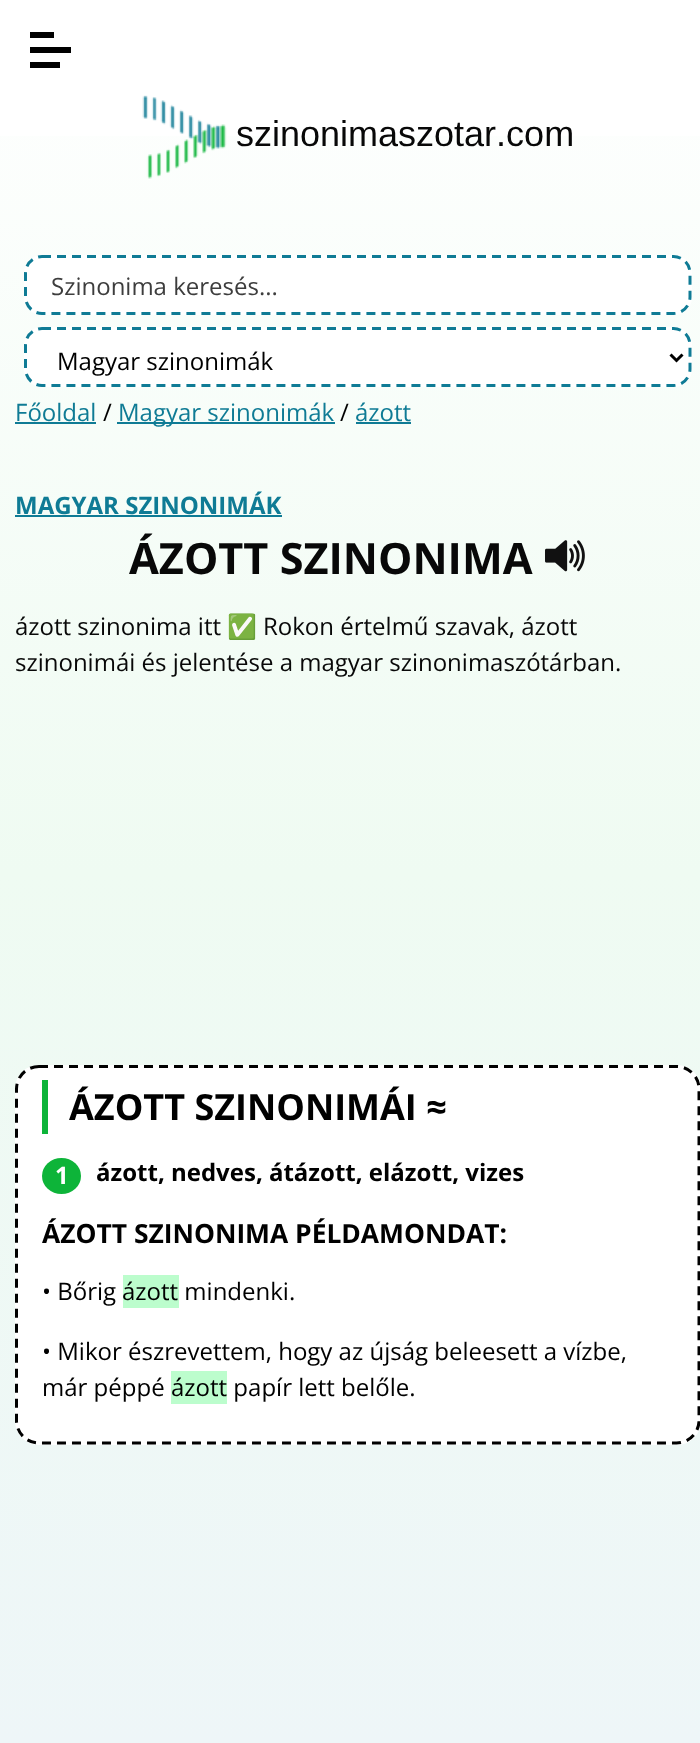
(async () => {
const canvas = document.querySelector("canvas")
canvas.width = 700
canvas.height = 1743
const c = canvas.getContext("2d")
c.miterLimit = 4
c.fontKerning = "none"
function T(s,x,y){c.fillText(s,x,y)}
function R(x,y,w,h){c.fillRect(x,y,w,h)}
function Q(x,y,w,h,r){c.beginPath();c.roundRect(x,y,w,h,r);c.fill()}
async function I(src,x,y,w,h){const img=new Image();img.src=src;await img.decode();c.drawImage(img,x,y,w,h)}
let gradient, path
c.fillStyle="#fff"
R(0,0,700,1743)
gradient = c.createLinearGradient(350,0,350,1743)
gradient.addColorStop(0,"#fff")
gradient.addColorStop(.5,"#effbf2")
gradient.addColorStop(1,"#eef6f8")
c.fillStyle = gradient
R(0,136,700,1607)
c.fillStyle="#000"
R(30,47,41,6)
R(30,32,24,6)
R(30,62,30,6)
await I("1.png",142,95,85,84)
c.font="36px Liberation Sans"
c.fillStyle="#080808"
T("szinonimaszotar.com",236,146)
c.fillStyle="#fff"
Q(24,255,668,60,18)
path = new Path2D("M42 256.5h631.5c9 0 16.5 7.5 16.5 16.5v24c0 9-7.5 16.5-16.5 16.5h-631.5c-9 0-16.5-7.5-16.5-16.5v-24c0-9 7.5-16.5 16.5-16.5z")
c.strokeStyle="#0f7b95"
c.lineWidth=3
c.setLineDash([9,6])
c.stroke(path)
c.font="24px Open Sans"
c.fillStyle="#3d3d3d"
T("Szinonima keresés...",51,295)
c.fillStyle="#fff"
Q(24,327,668,60,18)
path = new Path2D("M42 328.5h631.5c9 0 16.5 7.5 16.5 16.5v24c0 9-7.5 16.5-16.5 16.5h-631.5c-9 0-16.5-7.5-16.5-16.5v-24c0-9 7.5-16.5 16.5-16.5z")
c.stroke(path)
path = new Path2D("M670.5 354.5l6 6l6-6")
c.strokeStyle="#000"
c.setLineDash([])
c.stroke(path)
c.fillStyle="#000"
T("Magyar szinonimák",57,370)
c.fillStyle="#0f7b95"
T("Főoldal",15,421)
R(15,422,81,2)
c.fillStyle="#000"
T("/",103,421)
c.fillStyle="#0f7b95"
R(117,422,218,2)
T("Magyar szinonimák",118,421)
c.fillStyle="#000"
T("/",340,421)
c.fillStyle="#0f7b95"
T("ázott",355,421)
R(356,422,55,2)
c.font="bold 24px Open Sans"
T("MAGYAR SZINONIMÁK",15,514)
R(15,515,267,2)
c.font="bold 43.25px Open Sans"
c.fillStyle="#080808"
T("ÁZOTT SZINONIMA",129,574)
await I("2.png",545,540,40,32)
c.font="24px Open Sans"
T("ázott szinonima itt",15,635)
c.font="24px Noto Color Emoji"
T("✅",227,635)
c.font="24px Open Sans"
T("Rokon értelmű szavak, ázott",263,635)
T("szinonimái és jelentése a magyar szinonimaszótárban.",15,671)
c.fillStyle="#fff"
Q(15,1065,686,380,24)
path = new Path2D("M39 1066.5h637.5c12.5 0 22.5 10 22.5 22.5v331.5c0 12.5-10 22.5-22.5 22.5h-637.5c-12.5 0-22.5-10-22.5-22.5v-331.5c0-12.5 10-22.5 22.5-22.5z")
c.setLineDash([9,6])
c.stroke(path)
c.fillStyle="#0db439"
R(42,1080,6,54)
c.font="bold 36px Open Sans"
c.fillStyle="#000"
T("ÁZOTT SZINONIMÁI ≈",69,1120)
c.fillStyle="#0db439"
c.beginPath()
c.ellipse(61.5,1176,19.5,18,0,0,7)
c.fill()
c.font="bold 24px Open Sans"
c.fillStyle="#fff"
T("1",55,1184)
c.fillStyle="#000"
T("ázott, nedves, átázott, elázott, vizes",96,1181)
c.font="bold 26.4px Open Sans"
T("ÁZOTT SZINONIMA PÉLDAMONDAT:",42,1243)
c.font="24px Open Sans"
T("• Bőrig",42,1300)
c.fillStyle="#bcfdcd"
R(123,1275,56,33)
c.fillStyle="#000"
T("ázott mindenki.",122,1300)
T("• Mikor észrevettem, hogy az újság beleesett a vízbe,",42,1360)
T("már péppé",42,1396)
c.fillStyle="#bcfdcd"
R(171,1371,56,33)
c.fillStyle="#000"
T("ázott papír lett belőle.",171,1396)
})()
